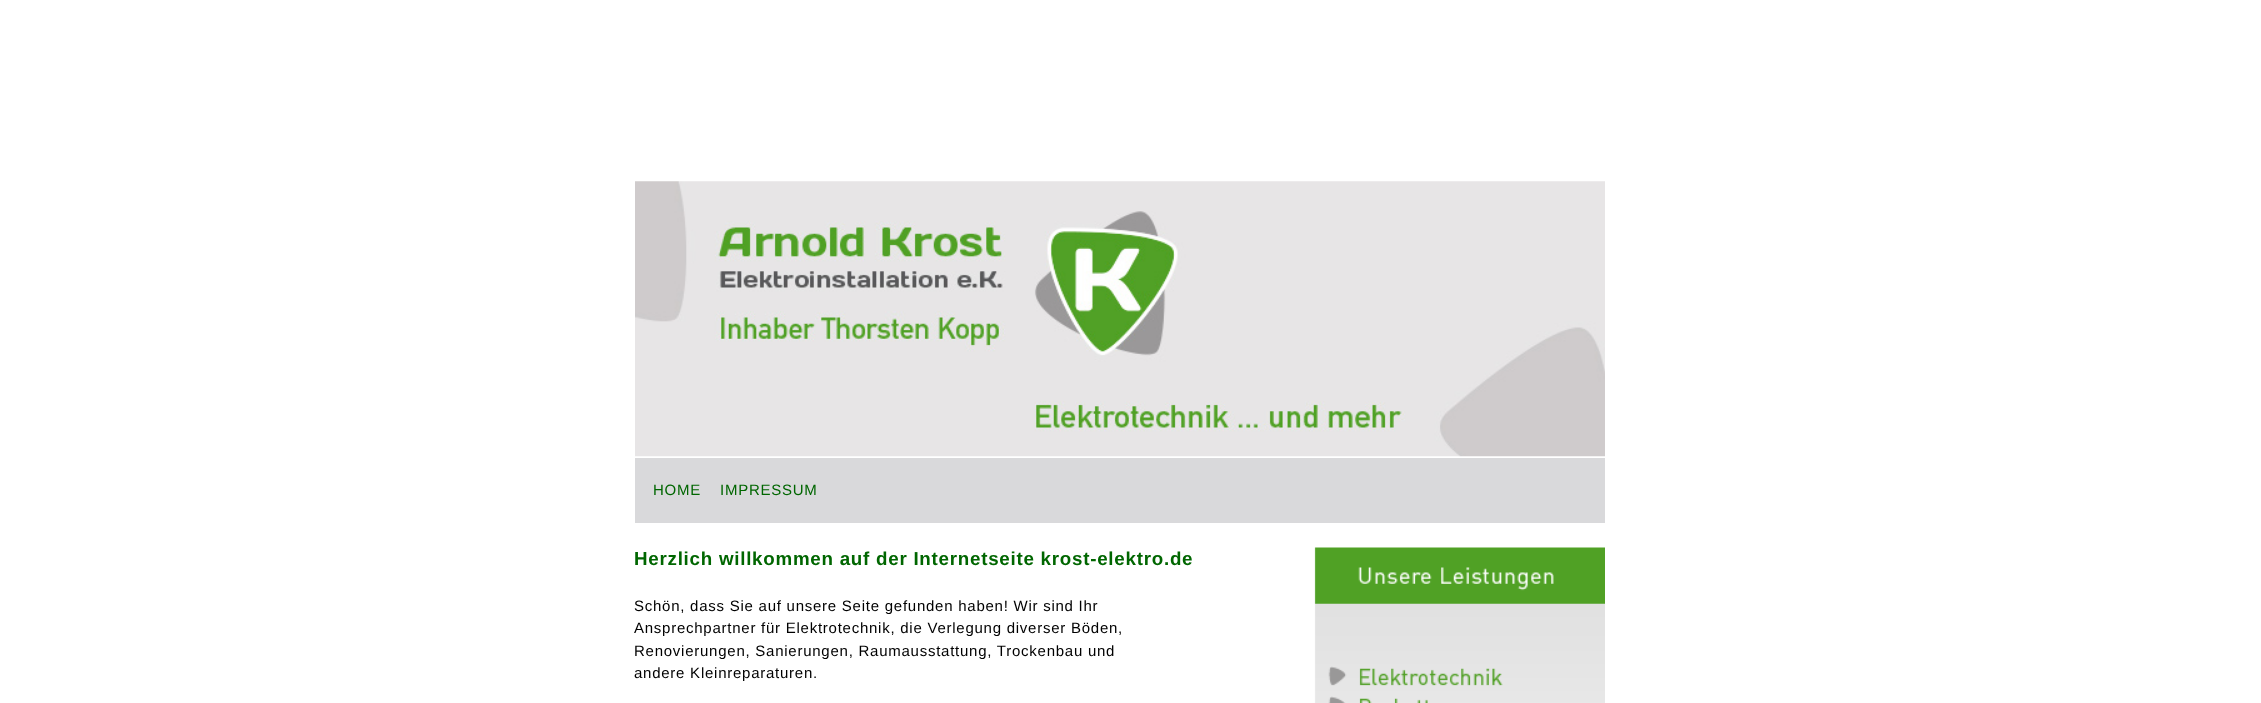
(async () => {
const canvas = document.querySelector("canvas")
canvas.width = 2261
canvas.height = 703
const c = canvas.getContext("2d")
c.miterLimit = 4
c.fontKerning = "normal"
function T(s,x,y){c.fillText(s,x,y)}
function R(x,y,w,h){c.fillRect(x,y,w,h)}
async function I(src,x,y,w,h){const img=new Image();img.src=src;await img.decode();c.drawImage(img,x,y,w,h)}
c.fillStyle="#fff"
R(0,0,2261,703)
await I("1.png",635,181,970,276)
c.fillStyle="#d9d9db"
R(635,458,970,65)
c.letterSpacing="0.75px"
c.font="15px Liberation Sans"
c.fillStyle="#060"
T("HOME",653,495)
T("IMPRESSUM",720,495)
c.font="bold 18.75px Liberation Sans"
T("Herzlich willkommen auf der Internetseite krost-elektro.de",634,565)
await I("2.png",1314,547,291,156)
c.font="15px Liberation Sans"
c.fillStyle="#000"
T("Schön, dass Sie auf unsere Seite gefunden haben! Wir sind Ihr",634,611)
T("Ansprechpartner für Elektrotechnik, die Verlegung diverser Böden,",634,633)
T("Renovierungen, Sanierungen, Raumausstattung, Trockenbau und",634,656)
T("andere Kleinreparaturen.",634,678)
})()
